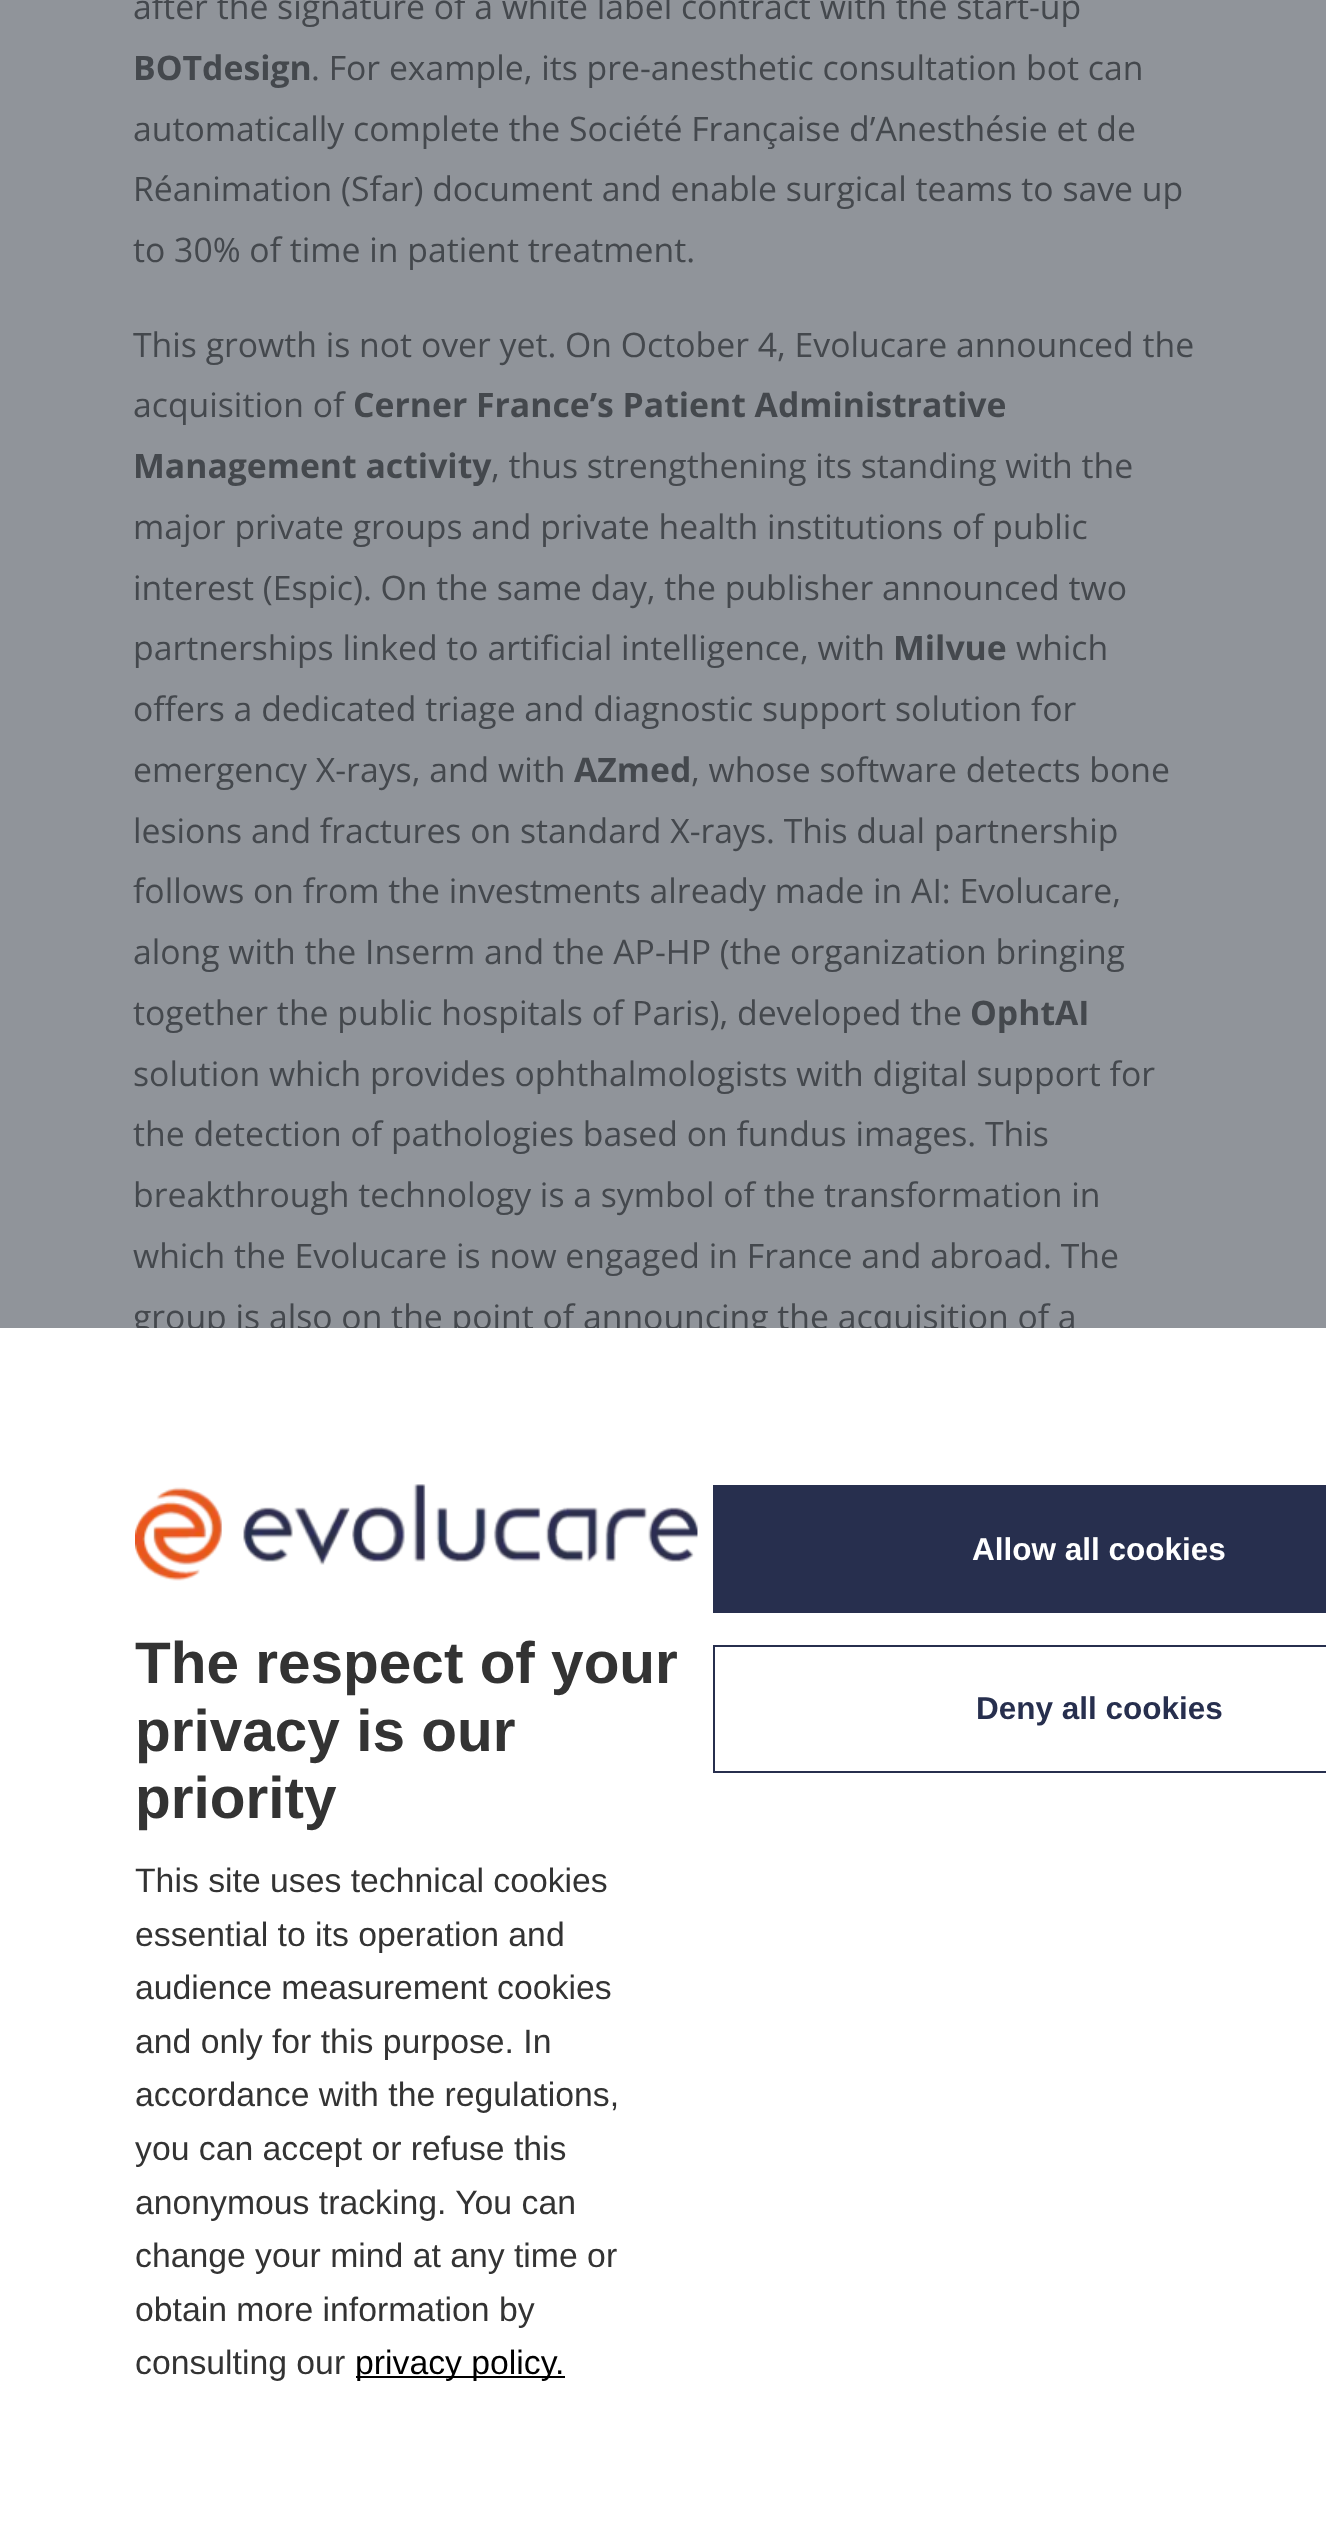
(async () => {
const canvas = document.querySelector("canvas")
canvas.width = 1326
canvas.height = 2546
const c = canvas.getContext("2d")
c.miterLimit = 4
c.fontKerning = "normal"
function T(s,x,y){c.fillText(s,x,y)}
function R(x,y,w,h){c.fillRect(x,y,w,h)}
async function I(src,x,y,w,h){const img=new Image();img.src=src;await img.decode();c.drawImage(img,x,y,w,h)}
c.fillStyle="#90949a"
R(0,0,1326,2546)
c.font="33.75px Open Sans"
c.fillStyle="#44484d"
T("after the signature of a white label contract with the start-up",133,19)
c.font="bold 33.75px Open Sans"
T("BOTdesign",133,80)
c.font="33.75px Open Sans"
T(". For example, its pre-anesthetic consultation bot can",311,80)
T("automatically complete the Société Française d’Anesthésie et de",133,141)
T("Réanimation (Sfar) document and enable surgical teams to save up",133,201)
T("to 30% of time in patient treatment.",133,262)
T("This growth is not over yet. On October 4, Evolucare announced the",133,357)
T("acquisition of",133,417)
c.font="bold 33.75px Open Sans"
T("Cerner France’s Patient Administrative",353,417)
T("Management activity",133,478)
c.font="33.75px Open Sans"
T(", thus strengthening its standing with the",491,478)
T("major private groups and private health institutions of public",133,539)
T("interest (Espic). On the same day, the publisher announced two",133,600)
T("partnerships linked to artificial intelligence, with",133,660)
c.font="bold 33.75px Open Sans"
T("Milvue",893,660)
c.font="33.75px Open Sans"
T("which",1016,660)
T("offers a dedicated triage and diagnostic support solution for",133,721)
T("emergency X-rays, and with",133,782)
c.font="bold 33.75px Open Sans"
T("AZmed",574,782)
c.font="33.75px Open Sans"
T(", whose software detects bone",691,782)
T("lesions and fractures on standard X-rays. This dual partnership",133,843)
T("follows on from the investments already made in AI: Evolucare,",133,903)
T("along with the Inserm and the AP-HP (the organization bringing",133,964)
T("together the public hospitals of Paris), developed the",133,1025)
c.font="bold 33.75px Open Sans"
T("OphtAI",970,1025)
c.font="33.75px Open Sans"
T("solution which provides ophthalmologists with digital support for",133,1086)
T("the detection of pathologies based on fundus images. This",133,1146)
T("breakthrough technology is a symbol of the transformation in",133,1207)
T("which the Evolucare is now engaged in France and abroad. The",133,1268)
T("group is also on the point of announcing the acquisition of a",133,1329)
c.fillStyle="#fff"
R(0,1328,1326,1218)
await I("1.png",135,1484,563,97)
c.font="bold 58.5px Liberation Sans"
c.fillStyle="#333"
T("The respect of your",135,1683)
T("privacy is our",135,1751)
T("priority",135,1818)
c.font="33.75px Liberation Sans"
T("This site uses technical cookies",135,1892)
T("essential to its operation and",135,1946)
T("audience measurement cookies",135,1999)
T("and only for this purpose. In",135,2053)
T("accordance with the regulations,",135,2106)
T("you can accept or refuse this",135,2160)
T("anonymous tracking. You can",135,2214)
T("change your mind at any time or",135,2267)
T("obtain more information by",135,2321)
T("consulting our",135,2374)
c.fillStyle="#000"
R(356,2376,209,2)
T("privacy policy.",355,2374)
c.fillStyle="#272f4e"
R(713,1485,613,128)
c.font="bold 31.5px Liberation Sans"
c.fillStyle="#fff"
T("Allow all cookies",972,1560)
c.strokeStyle="#272f4e"
c.lineWidth=2
c.strokeRect(714,1646,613,126)
c.fillStyle="#272f4e"
T("Deny all cookies",976,1719)
})()
